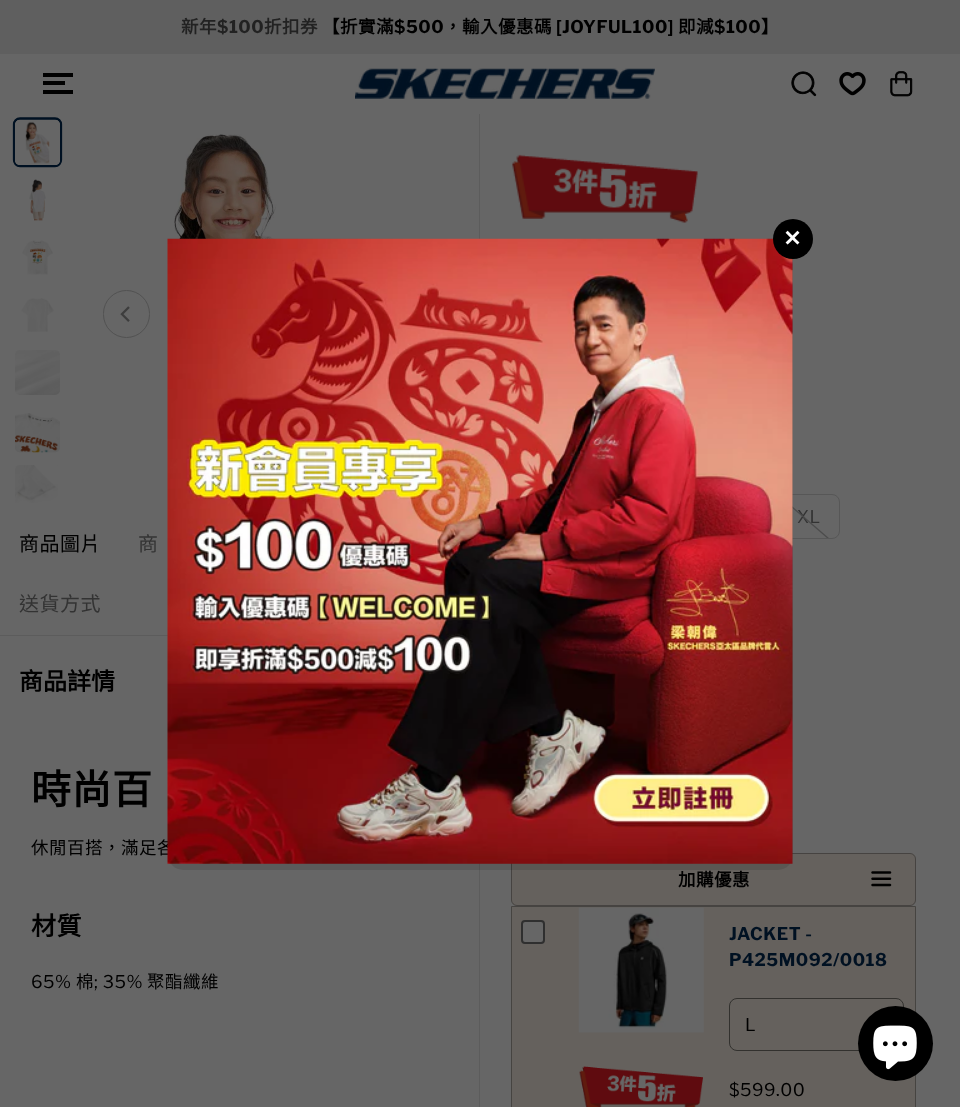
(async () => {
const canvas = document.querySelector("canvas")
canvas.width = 960
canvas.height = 1107
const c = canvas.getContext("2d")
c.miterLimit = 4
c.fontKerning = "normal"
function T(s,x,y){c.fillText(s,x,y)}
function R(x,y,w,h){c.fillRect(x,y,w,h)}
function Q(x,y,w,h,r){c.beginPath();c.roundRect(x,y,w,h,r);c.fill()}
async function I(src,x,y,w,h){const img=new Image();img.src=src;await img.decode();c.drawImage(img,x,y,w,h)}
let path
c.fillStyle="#666"
R(0,0,960,1107)
c.fillStyle="#5f5f5f"
R(0,0,960,54)
c.letterSpacing="0.5px"
c.font="bold 17.5px Noto Sans CJK TC"
c.fillStyle="#222"
T("新年",181,33)
c.font="bold 17.5px Libre Franklin"
T("$100",217,33)
c.font="bold 17.5px Noto Sans CJK TC"
T("折扣券",264,33)
c.fillStyle="#000"
T("【折實滿",322,33)
c.font="bold 17.5px Libre Franklin"
T("$500",394,33)
c.font="bold 17.5px Noto Sans CJK TC"
T("，輸入優惠碼",444,33)
c.font="bold 17.5px Libre Franklin"
T("[JOYFUL100]",556,33)
c.font="bold 17.5px Noto Sans CJK TC"
T("即減",678,33)
c.font="bold 17.5px Libre Franklin"
T("$100",714,33)
c.font="bold 17.5px Noto Sans CJK TC"
T("】",761,33)
R(43,81,22,4)
R(43,73,30,4)
R(43,90,30,4)
await I("1.png",355,68,300,31)
await I("2.png",791,71,26,26)
await I("3.png",839,72,27,24)
await I("4.png",890,71,23,26)
c.fillStyle="#5c5c5c"
R(479,114,1,993)
c.save()
path = new Path2D("M62.5 113.5v625h-50v-625z")
c.clip(path)
path = new Path2D("M61 124.5v35c0 3.5-2.5 6.5-6 6.5h-35c-3.5 0-6-3-6-6.5v-35c0-3 2.5-6 6-6h35c3.5 0 6 3 6 6z")
c.strokeStyle="#012"
c.lineWidth=2.5
c.stroke(path)
c.restore()
c.fillStyle="#666"
path = new Path2D("M60 125c0-2-1-4-3-5h-39c-2 1-3 3-3 5v35c0 3 2 5 5 5h35c3 0 5-2 5-5z")
c.fill(path)
await I("5.png",15,120,45,45)
await I("6.png",29,179,17,42)
await I("7.png",22,240,31,35)
await I("8.png",21,298,33,34)
await I("9.png",15,350,45,45)
await I("10.png",15,413,45,40)
await I("11.png",15,465,43,38)
await I("12.png",174,134,210,105)
c.beginPath()
c.roundRect(103.5,290.5,46,47,23)
c.strokeStyle="#525252"
c.stroke()
await I("13.png",120,306,10,16)
c.fillStyle="#5c5c5c"
R(0,635,168,1)
c.font="20px Noto Sans CJK TC"
c.fillStyle="#000"
T("商品圖片",19,551)
c.fillStyle="#333"
T("商",138,551)
T("送貨方式",19,611)
c.letterSpacing="0px"
c.font="bold 24px Noto Sans CJK TC"
c.fillStyle="#000"
T("商品詳情",19,690)
c.letterSpacing="0.5px"
c.font="bold 40px Noto Sans CJK TC"
T("時尚百",31,804)
c.font="17.5px Noto Sans CJK TC"
T("休閒百搭，滿足各",31,854)
c.font="bold 25px Noto Sans CJK TC"
T("材質",31,935)
c.font="17.5px Libre Franklin"
T("65%",31,988)
c.font="17.5px Noto Sans CJK TC"
T("棉",76,988)
c.font="17.5px Libre Franklin"
T("; 35%",94,988)
c.font="17.5px Noto Sans CJK TC"
T("聚酯纖維",147,988)
await I("14.png",512,154,186,69)
c.font="17.5px Libre Franklin"
c.fillStyle="#333"
T("XL",797,523)
c.fillStyle="#4c4c4c"
path = new Path2D("M828 539l-52-45h2l52 45z")
c.fill(path)
c.beginPath()
c.roundRect(766.5,494.5,73,44,7.5)
c.strokeStyle="#575757"
c.stroke()
c.fillStyle="#65615d"
Q(511,853,405,53,6)
c.beginPath()
c.roundRect(511.5,853.5,404,52,5.5)
c.strokeStyle="#0000004d"
c.stroke()
c.font="bold 17.5px Noto Sans CJK TC"
c.fillStyle="#000"
T("加購優惠",678,886)
await I("15.png",871,871,21,16)
c.fillStyle="#65615d"
c.beginPath()
c.rect(511.5,906.5,404,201)
c.fill()
c.strokeStyle="#464441"
c.stroke()
c.fillStyle="#666"
c.beginPath()
c.roundRect(522,921,22,22,3)
c.fill()
c.strokeStyle="#2f2f2f"
c.lineWidth=2
c.stroke()
await I("16.png",578,907,126,126)
await I("17.png",579,1066,124,41)
c.font="bold 17.5px Libre Franklin"
c.fillStyle="#012"
T("JACKET -",729,940)
T("P425M092/0018",729,966)
c.beginPath()
c.roundRect(729.5,998.5,174,52,7.5)
c.strokeStyle="#32312e"
c.lineWidth=1
c.stroke()
c.letterSpacing="1px"
c.font="17.5px Libre Franklin"
c.fillStyle="#000"
T("L",745,1031)
c.letterSpacing="0.5px"
T("$599.00",729,1096)
c.fillStyle="#0000001a"
Q(168,239,625,631,15)
await I("18.png",167,238,626,626)
c.fillStyle="#000"
c.beginPath()
c.arc(793,239,20,0,7)
c.fill()
c.letterSpacing="0px"
c.font="bold 22px DejaVu Sans"
c.fillStyle="#fff"
T("✕",783,246)
c.fillStyle="#000"
c.beginPath()
c.arc(895.5,1043.5,37.5,0,7)
c.fill()
await I("19.png",873,1025,44,45)
})()
